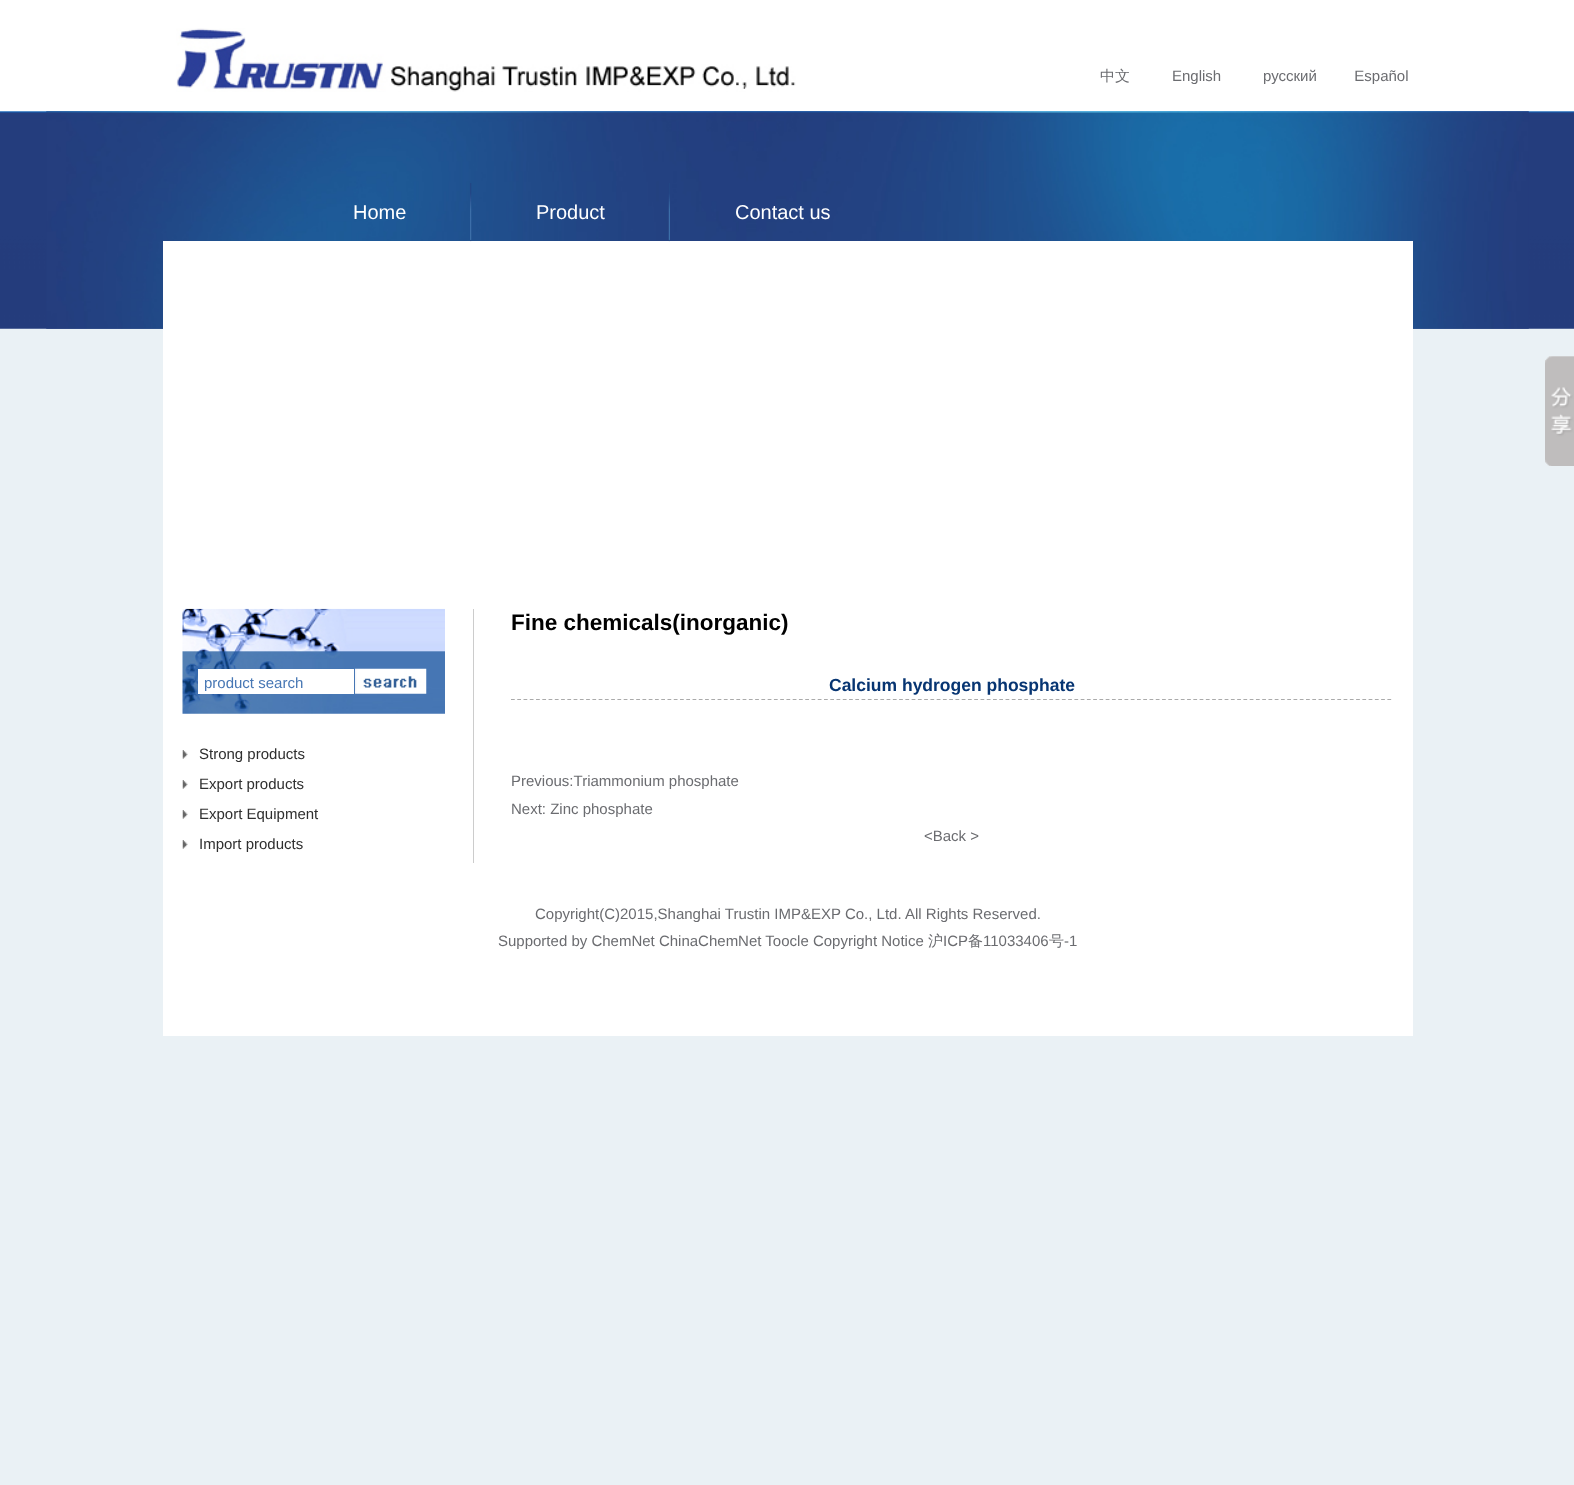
(async () => {
const canvas = document.querySelector("canvas")
canvas.width = 1574
canvas.height = 1485
const c = canvas.getContext("2d")
c.miterLimit = 4
c.fontKerning = "normal"
function T(s,x,y){c.fillText(s,x,y)}
function R(x,y,w,h){c.fillRect(x,y,w,h)}
async function I(src,x,y,w,h){const img=new Image();img.src=src;await img.decode();c.drawImage(img,x,y,w,h)}
let path
c.fillStyle="#eaf1f5"
R(0,0,1574,1485)
await I("1.png",0,0,1574,329)
await I("2.png",176,28,620,64)
c.font="500 15px WenQuanYi Zen Hei"
c.fillStyle="#6b6c70"
T("中文",1100,81)
c.font="15px Liberation Sans"
T("English",1172,81)
T("русский         Español",1263,81)
await I("3.png",46,111,1483,218)
c.fillStyle="#fff"
R(163,241,1250,795)
await I("4.png",470,183,2,59)
c.font="20px Liberation Sans"
T("Home",353,219)
await I("5.png",668,183,2,59)
T("Product",536,219)
T("Contact us",735,219)
await I("6.png",1545,356,29,110)
await I("7.png",182,608,263,106)
R(198,669,156,25)
c.font="15px Liberation Sans"
c.fillStyle="#4777b4"
T("product search",204,688)
await I("8.png",355,668,72,26)
await I("9.png",182,750,6,9)
c.fillStyle="#2f2f2f"
T("Strong products",199,759)
await I("10.png",182,780,6,9)
T("Export products",199,789)
await I("9.png",182,810,6,9)
T("Export Equipment",199,819)
await I("9.png",182,840,6,9)
T("Import products",199,849)
c.fillStyle="#ccc"
R(473,609,1,254)
c.font="bold 22.5px Liberation Sans"
c.fillStyle="#000"
T("Fine chemicals(inorganic)",511,630)
path = new Path2D("M511 699.5h881.5")
c.strokeStyle="#aaa"
c.lineWidth=1.2
c.setLineDash([3.75,2.51])
c.stroke(path)
c.font="bold 17.5px Liberation Sans"
c.fillStyle="#073572"
T("Calcium hydrogen phosphate",829,691)
c.font="15px Liberation Sans"
c.fillStyle="#6b6c70"
T("Previous:Triammonium phosphate",511,786)
T("Next: Zinc phosphate",511,814)
T("<Back >",924,841)
T("Copyright(C)2015,Shanghai Trustin IMP&EXP Co., Ltd.",535,919)
T("All Rights Reserved.",905,919)
T("Supported by ChemNet ChinaChemNet Toocle Copyright Notice",498,946)
c.font="500 15px WenQuanYi Zen Hei"
T("沪",928,946)
c.font="15px Liberation Sans"
T("ICP",943,946)
c.font="500 15px WenQuanYi Zen Hei"
T("备",968,946)
c.font="15px Liberation Sans"
T("11033406",983,946)
c.font="500 15px WenQuanYi Zen Hei"
T("号",1049,946)
c.font="15px Liberation Sans"
T("-1",1064,946)
})()
